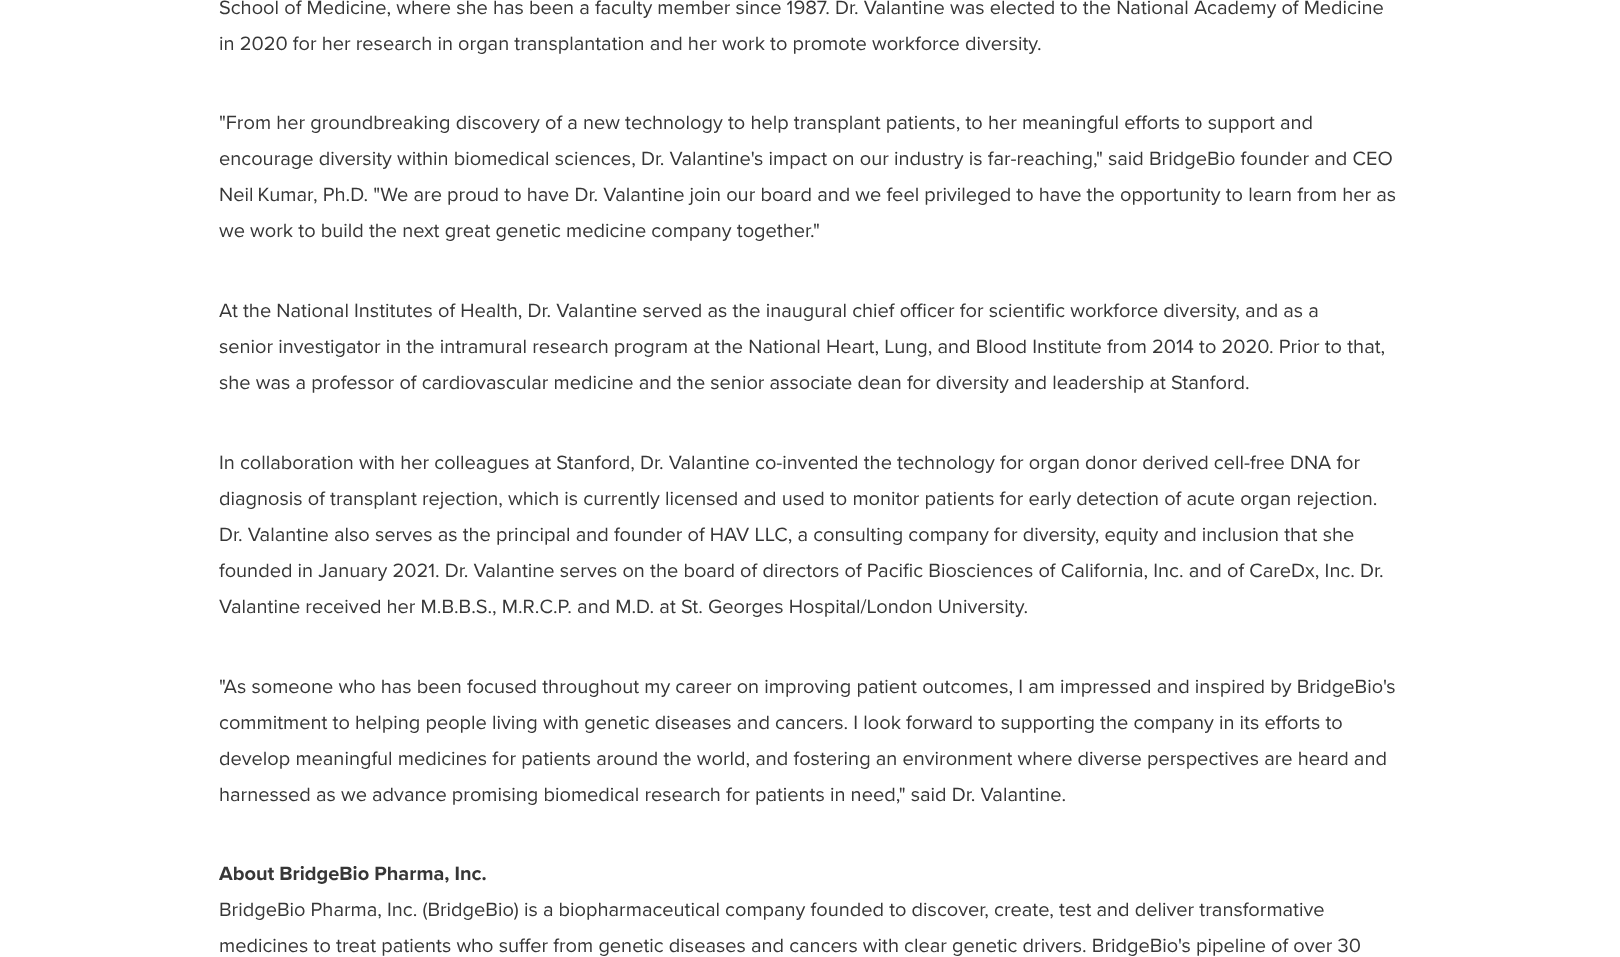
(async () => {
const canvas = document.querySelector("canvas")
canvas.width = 1620
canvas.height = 957
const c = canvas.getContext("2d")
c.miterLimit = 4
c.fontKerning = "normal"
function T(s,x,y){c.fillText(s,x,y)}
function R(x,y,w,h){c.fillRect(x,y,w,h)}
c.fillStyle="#fff"
R(0,0,1620,957)
c.font="20px Proxima Nova"
c.fillStyle="#373737"
T("School of Medicine, where she has been a faculty member since 1987. Dr. Valantine was elected to the National Academy of Medicine",219,14)
T("in 2020 for her research in organ transplantation and her work to promote workforce diversity.",219,50)
T("\"From her groundbreaking discovery of a new technology to help transplant patients, to her meaningful efforts to support and",219,129)
T("encourage diversity within biomedical sciences, Dr. Valantine's impact on our industry is far-reaching,\" said BridgeBio founder and CEO",219,165)
c.wordSpacing="-1px"
T("Neil Kumar",219,201)
c.wordSpacing="0px"
T(", Ph.D. \"We are proud to have Dr. Valantine join our board and we feel privileged to have the opportunity to learn from her as",313,201)
T("we work to build the next great genetic medicine company together.\"",219,237)
T("At the National Institutes of Health, Dr. Valantine served as the inaugural chief officer for scientific workforce diversity, and as a",219,317)
T("senior investigator in the intramural research program at the National Heart, Lung, and Blood Institute from 2014 to 2020. Prior to that,",219,353)
T("she was a professor of cardiovascular medicine and the senior associate dean for diversity and leadership at Stanford.",219,389)
T("In collaboration with her colleagues at Stanford, Dr. Valantine co-invented the technology for organ donor derived cell-free DNA for",219,469)
T("diagnosis of transplant rejection, which is currently licensed and used to monitor patients for early detection of acute organ rejection.",219,505)
T("Dr. Valantine also serves as the principal and founder of HAV LLC, a consulting company for diversity, equity and inclusion that she",219,541)
T("founded in January 2021. Dr. Valantine serves on the board of directors of Pacific Biosciences of California, Inc. and of CareDx, Inc. Dr.",219,577)
T("Valantine received her M.B.B.S., M.R.C.P. and M.D. at St. Georges Hospital/London University.",219,613)
T("\"As someone who has been focused throughout my career on improving patient outcomes, I am impressed and inspired by BridgeBio's",219,693)
T("commitment to helping people living with genetic diseases and cancers. I look forward to supporting the company in its efforts to",219,729)
T("develop meaningful medicines for patients around the world, and fostering an environment where diverse perspectives are heard and",219,765)
T("harnessed as we advance promising biomedical research for patients in need,\" said Dr. Valantine.",219,801)
c.font="bold 20px Proxima Nova"
T("About BridgeBio Pharma, Inc.",219,880)
c.font="20px Proxima Nova"
T("BridgeBio Pharma, Inc. (BridgeBio) is a biopharmaceutical company founded to discover, create, test and deliver transformative",219,916)
T("medicines to treat patients who suffer from genetic diseases and cancers with clear genetic drivers. BridgeBio's pipeline of over 30",219,952)
})()
